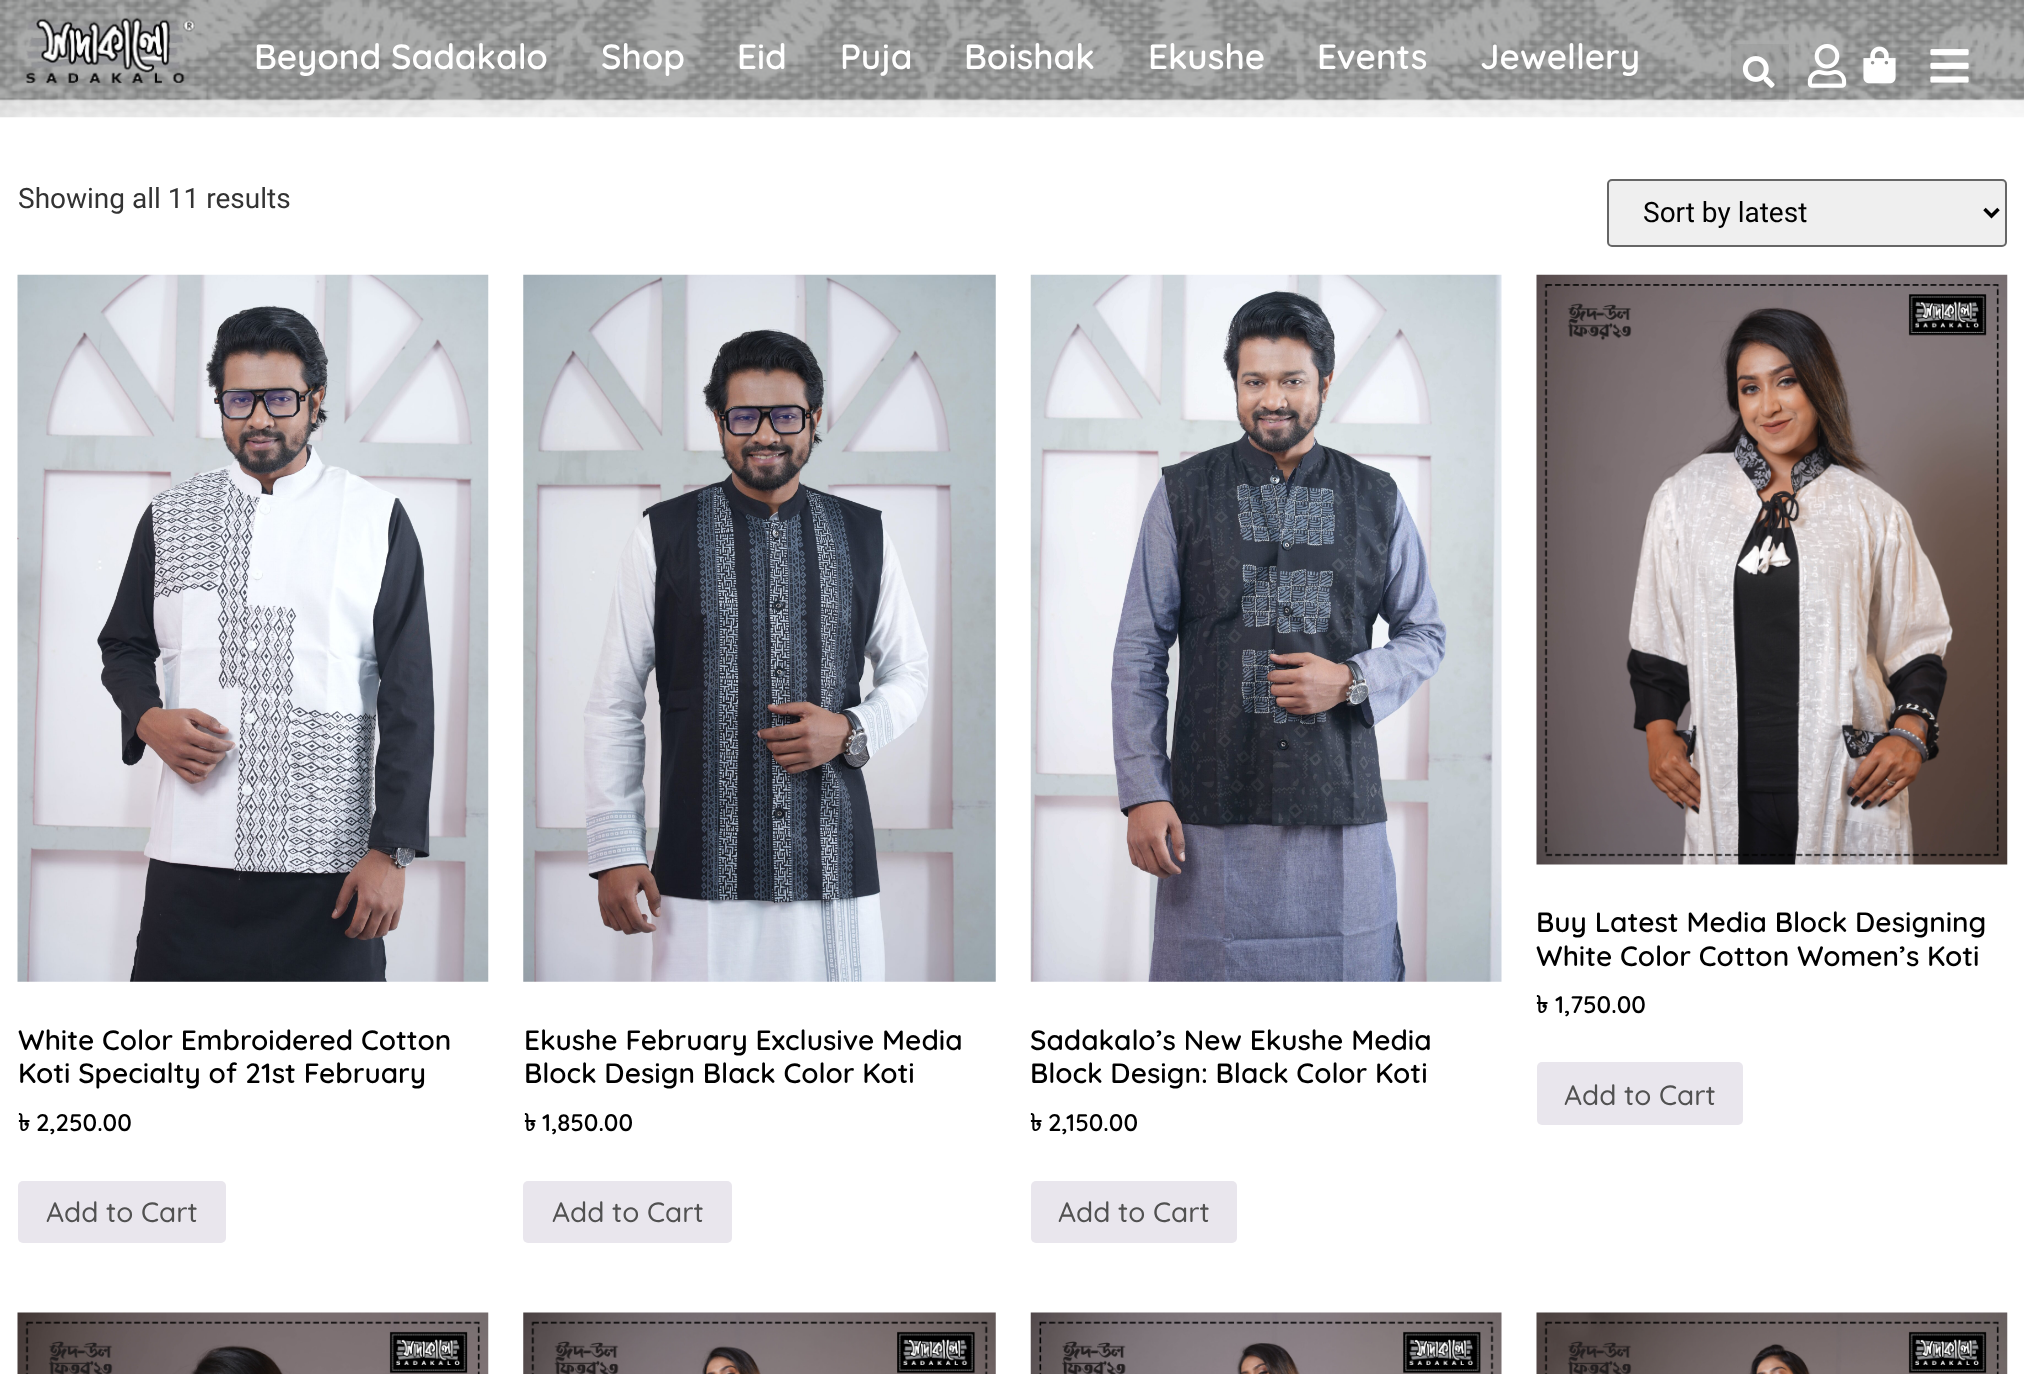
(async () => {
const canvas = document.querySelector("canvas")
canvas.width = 2024
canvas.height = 1374
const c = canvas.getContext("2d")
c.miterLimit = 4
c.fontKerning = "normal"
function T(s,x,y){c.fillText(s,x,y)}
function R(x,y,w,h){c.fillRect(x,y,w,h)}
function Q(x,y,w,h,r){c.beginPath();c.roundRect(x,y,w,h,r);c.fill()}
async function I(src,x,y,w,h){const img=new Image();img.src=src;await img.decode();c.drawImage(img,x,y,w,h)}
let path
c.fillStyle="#fff"
R(0,0,2024,1374)
await I("1.png",0,0,2024,118)
await I("2.png",25,17,170,67)
c.font="600 35px Quicksand"
T("Beyond Sadakalo",254,69)
T("Shop",601,69)
T("Eid",737,69)
T("Puja",840,69)
T("Boishak",964,69)
T("Ekushe",1148,69)
T("Events",1317,69)
T("Jewellery",1480,69)
c.fillStyle="#0000000d"
R(1731,44,58,58)
await I("3.png",1742,56,33,32)
await I("4.png",1807,44,40,44)
await I("5.png",1863,46,33,38)
await I("6.png",1930,49,39,34)
c.font="28px Roboto"
c.fillStyle="#333"
T("Showing all 11 results",18,208)
c.fillStyle="#efefef"
c.beginPath()
c.roundRect(1608,180,398,66,4)
c.fill()
c.strokeStyle="#666"
c.lineWidth=2
c.stroke()
path = new Path2D("M1984.5 209l7 7l7-7")
c.strokeStyle="#000"
c.lineWidth=3.5
c.stroke(path)
c.fillStyle="#000"
T("Sort by latest",1643,222)
await I("7.png",1536,274,472,591)
c.font="600 28px Quicksand"
T("Buy Latest Media Block Designing",1536,932)
T("White Color Cotton Women’s Koti",1536,966)
c.font="bold 24px Lohit Bengali"
T("৳",1536,1013)
c.font="600 24px Quicksand"
T("1,750.00",1555,1013)
c.fillStyle="#e9e6ed"
Q(1537,1062,206,63,5)
c.font="500 28px Quicksand"
c.fillStyle="#515151"
T("Add to Cart",1564,1105)
await I("8.png",17,274,472,708)
c.font="600 28px Quicksand"
c.fillStyle="#000"
T("White Color Embroidered Cotton",18,1050)
T("Koti Specialty of 21st February",18,1083)
c.font="bold 24px Lohit Bengali"
T("৳",18,1131)
c.font="600 24px Quicksand"
T("2,250.00",36,1131)
c.fillStyle="#e9e6ed"
Q(18,1181,208,62,5)
c.font="500 28px Quicksand"
c.fillStyle="#515151"
T("Add to Cart",46,1222)
await I("9.png",523,274,473,708)
c.font="600 28px Quicksand"
c.fillStyle="#000"
T("Ekushe February Exclusive Media",524,1050)
T("Block Design Black Color Koti",524,1083)
c.font="bold 24px Lohit Bengali"
T("৳",524,1131)
c.font="600 24px Quicksand"
T("1,850.00",542,1131)
c.fillStyle="#e9e6ed"
Q(523,1181,209,62,5)
c.font="500 28px Quicksand"
c.fillStyle="#515151"
T("Add to Cart",552,1222)
await I("10.png",1030,274,472,708)
c.font="600 28px Quicksand"
c.fillStyle="#000"
T("Sadakalo’s New Ekushe Media",1030,1050)
T("Block Design: Black Color Koti",1030,1083)
c.font="bold 24px Lohit Bengali"
T("৳",1030,1131)
c.font="600 24px Quicksand"
T("2,150.00",1048,1131)
c.fillStyle="#e9e6ed"
Q(1031,1181,206,62,5)
c.font="500 28px Quicksand"
c.fillStyle="#515151"
T("Add to Cart",1058,1222)
await I("11.png",17,1312,472,62)
await I("12.png",523,1312,473,62)
await I("13.png",1030,1312,472,62)
await I("14.png",1536,1312,472,62)
})()
